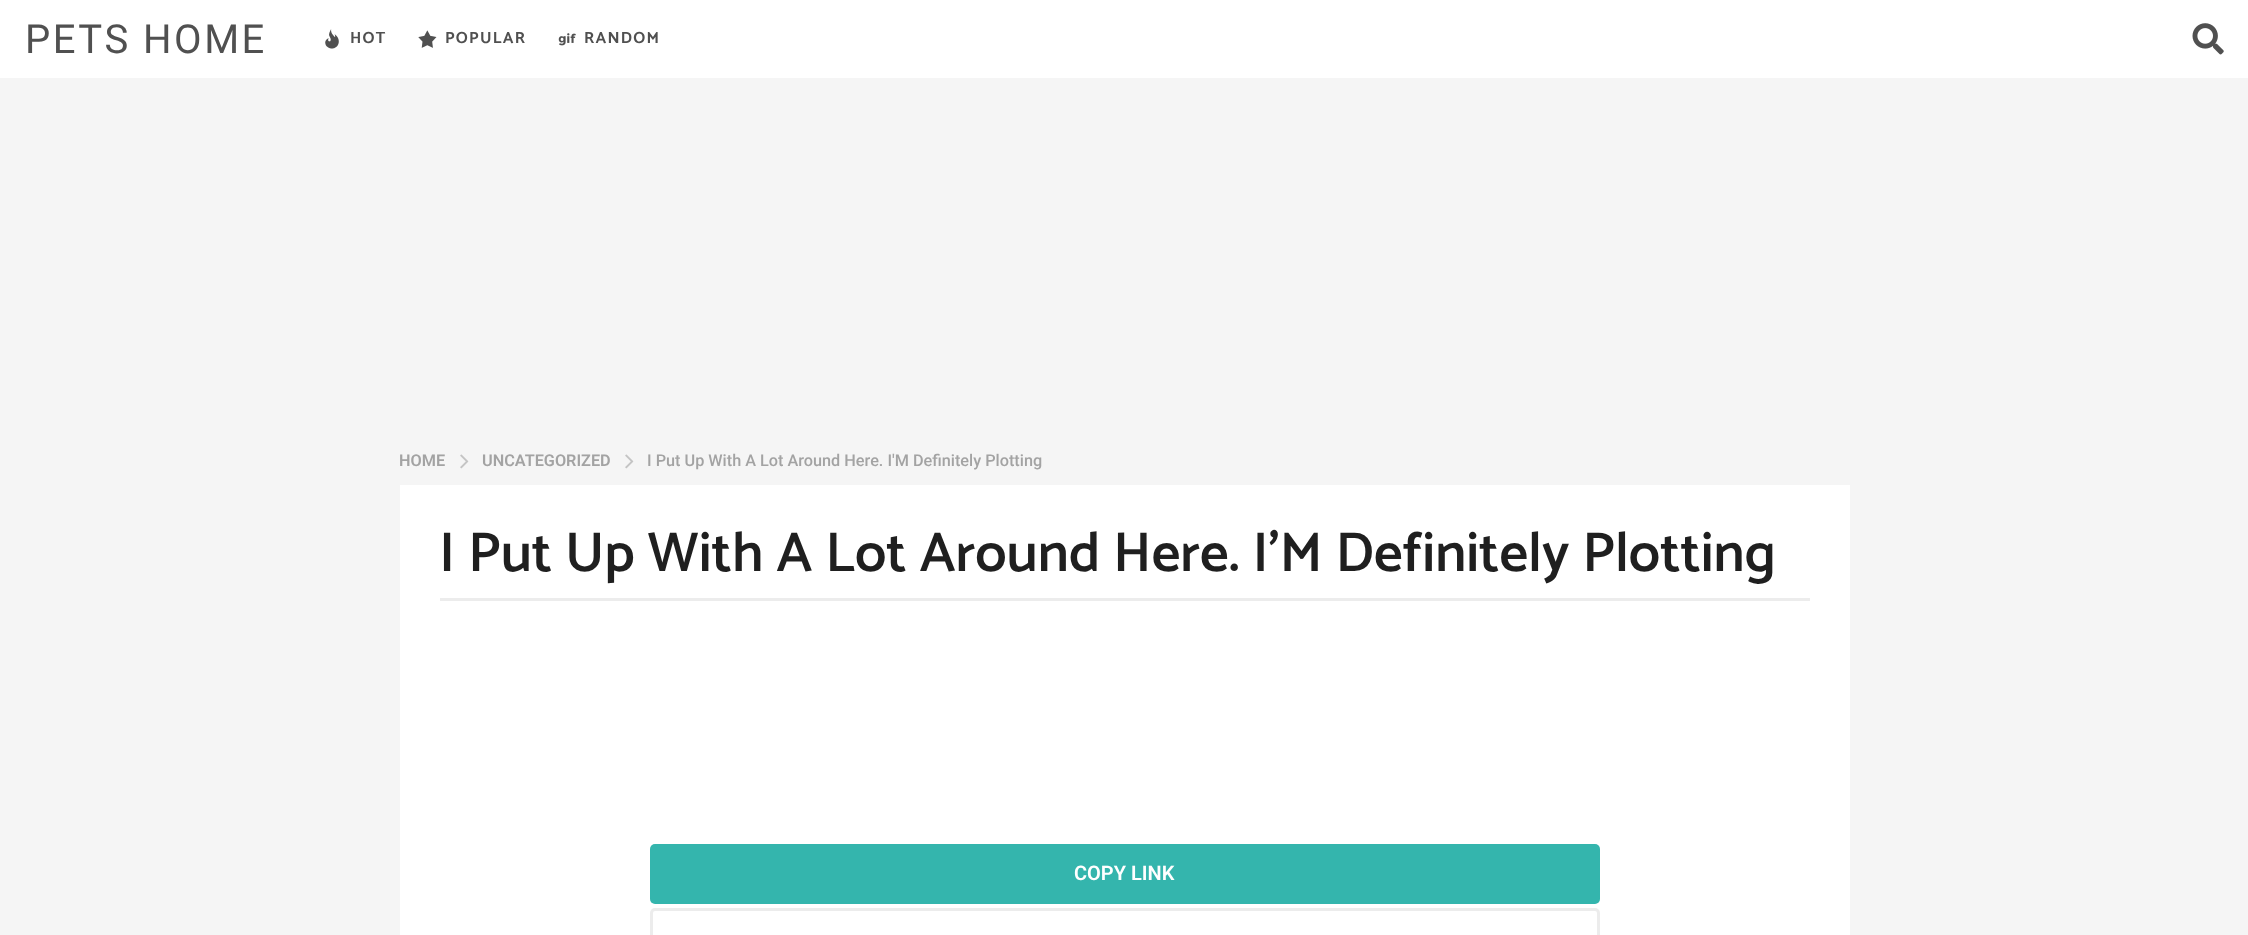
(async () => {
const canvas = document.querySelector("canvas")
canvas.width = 2248
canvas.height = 935
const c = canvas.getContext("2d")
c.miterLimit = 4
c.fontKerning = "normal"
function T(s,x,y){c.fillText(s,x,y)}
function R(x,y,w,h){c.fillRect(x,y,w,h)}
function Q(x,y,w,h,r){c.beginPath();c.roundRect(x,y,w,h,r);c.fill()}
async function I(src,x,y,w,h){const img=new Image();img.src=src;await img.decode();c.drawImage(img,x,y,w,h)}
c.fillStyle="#f5f5f5"
R(0,0,2248,935)
c.fillStyle="#fff"
R(0,0,2248,78)
c.letterSpacing="2.5px"
c.font="40px Roboto"
c.fillStyle="#505050"
T("PETS HOME",25,53)
await I("1.png",325,29,14,20)
c.letterSpacing="1.25px"
c.font="bold 16.25px Catamaran"
T("HOT",350,43)
await I("2.png",418,30,19,18)
T("POPULAR",445,43)
await I("3.png",558,33,18,13)
T("RANDOM",584,43)
await I("4.png",2192,23,32,32)
c.letterSpacing="0px"
c.font="600 16.25px Roboto"
c.fillStyle="#a3a3a3"
T("HOME",399,466)
await I("5.png",460,454,9,15)
T("UNCATEGORIZED",482,466)
await I("5.png",625,454,9,15)
c.font="500 16.25px Roboto"
T("I Put Up With A Lot Around Here. I'M Definitely Plotting",647,466)
c.fillStyle="#fff"
R(400,485,1450,450)
c.font="600 56.25px Catamaran"
c.fillStyle="#1f1f1f"
T("I Put Up With A Lot Around Here. I’M Definitely Plotting",439,571)
c.fillStyle="#ececec"
R(440,598,1370,3)
c.fillStyle="#34b5ad"
Q(650,844,950,60,5)
c.font="600 20px Roboto"
c.fillStyle="#fff"
T("COPY LINK",1074,880)
c.beginPath()
c.roundRect(651.5,909.5,947,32,3.5)
c.strokeStyle="#ececec"
c.lineWidth=3
c.stroke()
})()
